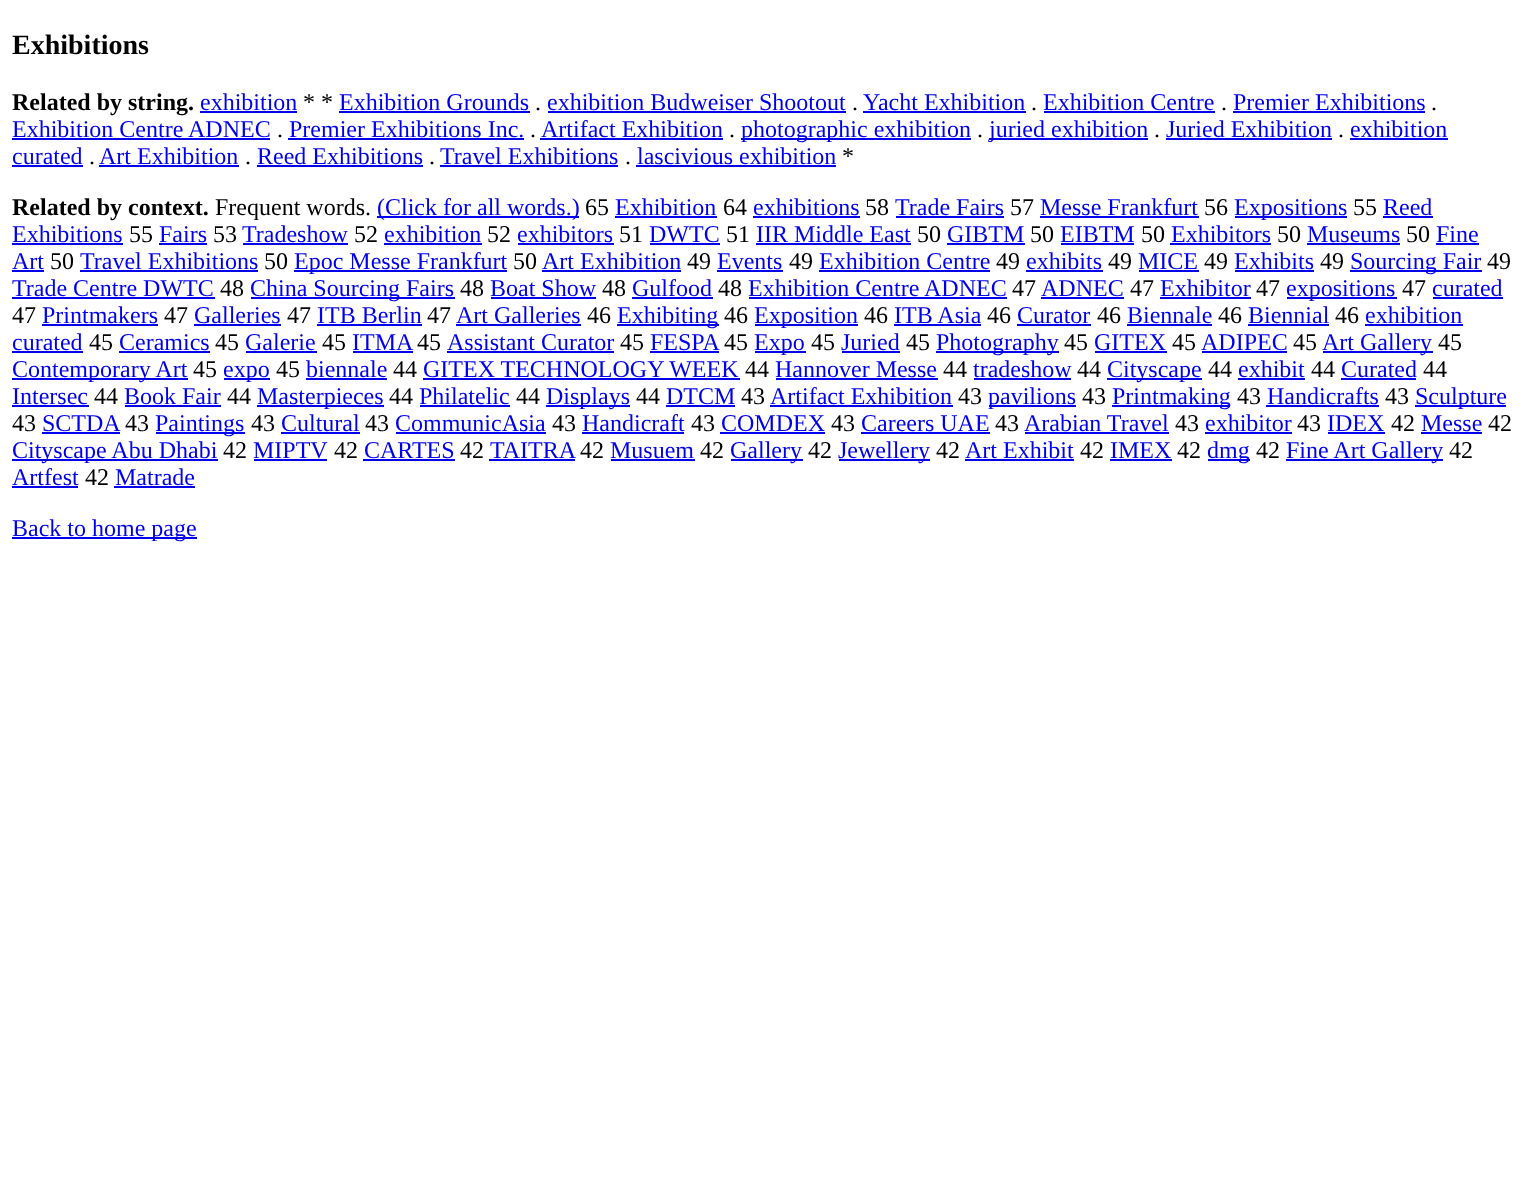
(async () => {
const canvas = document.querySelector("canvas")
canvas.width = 1524
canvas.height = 1181
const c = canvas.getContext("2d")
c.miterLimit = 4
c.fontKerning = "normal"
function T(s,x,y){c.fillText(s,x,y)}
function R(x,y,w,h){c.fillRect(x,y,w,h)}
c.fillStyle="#fff"
R(0,0,1524,1181)
c.font="bold 28px Liberation Serif"
c.fillStyle="#000"
T("Exhibitions",12,54)
c.font="bold 24px Liberation Serif"
T("Related by string.",12,110)
c.font="24px Liberation Serif"
c.fillStyle="#00e"
T("exhibition",200,110)
R(200,111,97,2)
c.fillStyle="#000"
T("* *",303,110)
c.fillStyle="#00e"
T("Exhibition Grounds",339,110)
R(339,111,191,2)
T("exhibition Budweiser Shootout",547,110)
R(548,111,298,2)
T("Yacht Exhibition",863,110)
R(863,111,163,2)
T("Exhibition Centre",1043,110)
R(1044,111,171,2)
T("Premier Exhibitions",1233,110)
R(1233,111,192,2)
c.fillStyle="#000"
T(".",535,110)
T(".",852,110)
T(".",1031,110)
T(".",1221,110)
T(".",1431,110)
c.fillStyle="#00e"
T("Exhibition Centre ADNEC",12,137)
R(12,138,258,2)
c.fillStyle="#000"
T(".",277,137)
c.fillStyle="#00e"
T("Premier Exhibitions Inc.",289,137)
R(288,138,236,2)
c.fillStyle="#000"
T(".",530,137)
c.fillStyle="#00e"
T("Artifact Exhibition",541,137)
R(540,138,183,2)
c.fillStyle="#000"
T(".",729,137)
c.fillStyle="#00e"
R(741,138,230,2)
T("photographic exhibition",741,137)
c.fillStyle="#000"
T(".",977,137)
c.fillStyle="#00e"
R(989,138,159,2)
T("juried exhibition",989,137)
c.fillStyle="#000"
T(".",1154,137)
c.fillStyle="#00e"
T("Juried Exhibition",1166,137)
R(1166,138,166,2)
c.fillStyle="#000"
T(".",1338,137)
c.fillStyle="#00e"
T("exhibition",1350,137)
R(1350,138,98,2)
T("curated",12,164)
R(12,165,71,2)
T("Art Exhibition",99,164)
R(99,165,140,2)
T("Reed Exhibitions",257,164)
R(257,165,166,2)
T("Travel Exhibitions",440,164)
R(440,165,178,2)
T("lascivious exhibition",637,164)
R(636,165,200,2)
c.fillStyle="#000"
T("*",842,164)
T(".",89,164)
T(".",245,164)
T(".",429,164)
T(".",625,164)
c.font="bold 24px Liberation Serif"
T("Related by context.",12,215)
c.font="24px Liberation Serif"
T("Frequent words.",215,215)
c.fillStyle="#00e"
R(377,216,202,2)
T("(Click for all words.)",377,215)
c.fillStyle="#000"
T("65",585,215)
c.fillStyle="#00e"
T("Exhibition",615,215)
R(615,216,102,2)
c.fillStyle="#000"
T("64",723,215)
c.fillStyle="#00e"
T("exhibitions",753,215)
R(753,216,107,2)
c.fillStyle="#000"
T("58",865,215)
c.fillStyle="#00e"
T("Trade Fairs",895,215)
R(896,216,108,2)
c.fillStyle="#000"
T("57",1010,215)
c.fillStyle="#00e"
T("Messe Frankfurt",1040,215)
R(1040,216,159,2)
c.fillStyle="#000"
T("56",1204,215)
c.fillStyle="#00e"
R(1235,216,112,2)
T("Expositions",1234,215)
c.fillStyle="#000"
T("55",1353,215)
c.fillStyle="#00e"
T("Reed",1383,215)
R(1383,216,50,2)
T("Exhibitions",12,242)
R(12,243,111,2)
c.fillStyle="#000"
T("55",129,242)
c.fillStyle="#00e"
T("Fairs",159,242)
R(159,243,48,2)
c.fillStyle="#000"
T("53",213,242)
c.fillStyle="#00e"
T("Tradeshow",242,242)
R(243,243,105,2)
c.fillStyle="#000"
T("52",354,242)
c.fillStyle="#00e"
T("exhibition",384,242)
R(384,243,98,2)
c.fillStyle="#000"
T("52",487,242)
c.fillStyle="#00e"
T("exhibitors",517,242)
R(518,243,96,2)
c.fillStyle="#000"
T("51",619,242)
c.fillStyle="#00e"
T("DWTC",649,242)
R(650,243,70,2)
c.fillStyle="#000"
T("51",726,242)
c.fillStyle="#00e"
T("IIR Middle East",756,242)
R(756,243,155,2)
c.fillStyle="#000"
T("50",917,242)
c.fillStyle="#00e"
T("GIBTM",947,242)
R(947,243,78,2)
c.fillStyle="#000"
T("50",1030,242)
c.fillStyle="#00e"
T("EIBTM",1060,242)
R(1061,243,73,2)
c.fillStyle="#000"
T("50",1141,242)
c.fillStyle="#00e"
T("Exhibitors",1171,242)
R(1170,243,101,2)
c.fillStyle="#000"
T("50",1277,242)
c.fillStyle="#00e"
T("Museums",1307,242)
R(1307,243,93,2)
c.fillStyle="#000"
T("50",1406,242)
c.fillStyle="#00e"
T("Fine",1436,242)
R(1436,243,43,2)
T("Art",12,269)
R(12,270,32,2)
c.fillStyle="#000"
T("50",50,269)
c.fillStyle="#00e"
T("Travel Exhibitions",80,269)
R(80,270,178,2)
c.fillStyle="#000"
T("50",264,269)
c.fillStyle="#00e"
R(294,270,213,2)
T("Epoc Messe Frankfurt",294,269)
c.fillStyle="#000"
T("50",513,269)
c.fillStyle="#00e"
T("Art Exhibition",542,269)
R(542,270,139,2)
c.fillStyle="#000"
T("49",687,269)
c.fillStyle="#00e"
T("Events",717,269)
R(717,270,66,2)
c.fillStyle="#000"
T("49",789,269)
c.fillStyle="#00e"
T("Exhibition Centre",819,269)
R(819,270,171,2)
c.fillStyle="#000"
T("49",996,269)
c.fillStyle="#00e"
T("exhibits",1026,269)
R(1026,270,77,2)
c.fillStyle="#000"
T("49",1108,269)
c.fillStyle="#00e"
T("MICE",1138,269)
R(1139,270,60,2)
c.fillStyle="#000"
T("49",1204,269)
c.fillStyle="#00e"
T("Exhibits",1234,269)
R(1235,270,79,2)
c.fillStyle="#000"
T("49",1320,269)
c.fillStyle="#00e"
R(1350,270,132,2)
T("Sourcing Fair",1350,269)
c.fillStyle="#000"
T("49",1487,269)
c.fillStyle="#00e"
T("Trade Centre DWTC",12,296)
R(12,297,203,2)
c.fillStyle="#000"
T("48",220,296)
c.fillStyle="#00e"
R(251,297,204,2)
T("China Sourcing Fairs",250,296)
c.fillStyle="#000"
T("48",460,296)
c.fillStyle="#00e"
T("Boat Show",490,296)
R(491,297,105,2)
c.fillStyle="#000"
T("48",602,296)
c.fillStyle="#00e"
T("Gulfood",632,296)
R(632,297,81,2)
c.fillStyle="#000"
T("48",718,296)
c.fillStyle="#00e"
T("Exhibition Centre ADNEC",748,296)
R(749,297,258,2)
c.fillStyle="#000"
T("47",1012,296)
c.fillStyle="#00e"
T("ADNEC",1041,296)
R(1041,297,83,2)
c.fillStyle="#000"
T("47",1130,296)
c.fillStyle="#00e"
T("Exhibitor",1160,296)
R(1160,297,91,2)
c.fillStyle="#000"
T("47",1256,296)
c.fillStyle="#00e"
R(1287,297,110,2)
T("expositions",1286,296)
c.fillStyle="#000"
T("47",1402,296)
c.fillStyle="#00e"
T("curated",1432,296)
R(1433,297,70,2)
c.fillStyle="#000"
T("47",12,323)
c.fillStyle="#00e"
T("Printmakers",42,323)
R(42,324,116,2)
c.fillStyle="#000"
T("47",164,323)
c.fillStyle="#00e"
T("Galleries",194,323)
R(194,324,87,2)
c.fillStyle="#000"
T("47",287,323)
c.fillStyle="#00e"
T("ITB Berlin",317,323)
R(317,324,105,2)
c.fillStyle="#000"
T("47",427,323)
c.fillStyle="#00e"
T("Art Galleries",456,323)
R(456,324,125,2)
c.fillStyle="#000"
T("46",587,323)
c.fillStyle="#00e"
R(617,324,102,2)
T("Exhibiting",617,323)
c.fillStyle="#000"
T("46",724,323)
c.fillStyle="#00e"
R(755,324,103,2)
T("Exposition",754,323)
c.fillStyle="#000"
T("46",864,323)
c.fillStyle="#00e"
T("ITB Asia",894,323)
R(894,324,87,2)
c.fillStyle="#000"
T("46",987,323)
c.fillStyle="#00e"
T("Curator",1017,323)
R(1017,324,74,2)
c.fillStyle="#000"
T("46",1097,323)
c.fillStyle="#00e"
T("Biennale",1127,323)
R(1127,324,85,2)
c.fillStyle="#000"
T("46",1218,323)
c.fillStyle="#00e"
T("Biennial",1248,323)
R(1248,324,81,2)
c.fillStyle="#000"
T("46",1335,323)
c.fillStyle="#00e"
T("exhibition",1365,323)
R(1365,324,98,2)
T("curated",12,350)
R(12,351,71,2)
c.fillStyle="#000"
T("45",89,350)
c.fillStyle="#00e"
T("Ceramics",119,350)
R(119,351,91,2)
c.fillStyle="#000"
T("45",215,350)
c.fillStyle="#00e"
T("Galerie",245,350)
R(246,351,71,2)
c.fillStyle="#000"
T("45",322,350)
c.fillStyle="#00e"
T("ITMA",352,350)
R(353,351,60,2)
c.fillStyle="#000"
T("45",417,350)
c.fillStyle="#00e"
T("Assistant Curator",447,350)
R(447,351,167,2)
c.fillStyle="#000"
T("45",620,350)
c.fillStyle="#00e"
T("FESPA",650,350)
R(650,351,69,2)
c.fillStyle="#000"
T("45",724,350)
c.fillStyle="#00e"
R(755,351,51,2)
T("Expo",754,350)
c.fillStyle="#000"
T("45",811,350)
c.fillStyle="#00e"
T("Juried",841,350)
R(842,351,58,2)
c.fillStyle="#000"
T("45",906,350)
c.fillStyle="#00e"
R(936,351,123,2)
T("Photography",936,350)
c.fillStyle="#000"
T("45",1064,350)
c.fillStyle="#00e"
T("GITEX",1094,350)
R(1095,351,72,2)
c.fillStyle="#000"
T("45",1172,350)
c.fillStyle="#00e"
T("ADIPEC",1201,350)
R(1202,351,85,2)
c.fillStyle="#000"
T("45",1293,350)
c.fillStyle="#00e"
R(1323,351,110,2)
T("Art Gallery",1322,350)
c.fillStyle="#000"
T("45",1438,350)
c.fillStyle="#00e"
R(12,378,176,2)
T("Contemporary Art",12,377)
c.fillStyle="#000"
T("45",193,377)
c.fillStyle="#00e"
R(224,378,46,2)
T("expo",223,377)
c.fillStyle="#000"
T("45",276,377)
c.fillStyle="#00e"
T("biennale",306,377)
R(306,378,81,2)
c.fillStyle="#000"
T("44",393,377)
c.fillStyle="#00e"
T("GITEX TECHNOLOGY WEEK",423,377)
R(423,378,317,2)
c.fillStyle="#000"
T("44",745,377)
c.fillStyle="#00e"
T("Hannover Messe",775,377)
R(776,378,162,2)
c.fillStyle="#000"
T("44",943,377)
c.fillStyle="#00e"
T("tradeshow",973,377)
R(974,378,97,2)
c.fillStyle="#000"
T("44",1077,377)
c.fillStyle="#00e"
R(1107,378,95,2)
T("Cityscape",1107,377)
c.fillStyle="#000"
T("44",1208,377)
c.fillStyle="#00e"
T("exhibit",1238,377)
R(1238,378,67,2)
c.fillStyle="#000"
T("44",1311,377)
c.fillStyle="#00e"
T("Curated",1341,377)
R(1341,378,75,2)
c.fillStyle="#000"
T("44",1423,377)
c.fillStyle="#00e"
T("Intersec",12,404)
R(12,405,77,2)
c.fillStyle="#000"
T("44",94,404)
c.fillStyle="#00e"
T("Book Fair",124,404)
R(125,405,96,2)
c.fillStyle="#000"
T("44",227,404)
c.fillStyle="#00e"
R(257,405,127,2)
T("Masterpieces",257,404)
c.fillStyle="#000"
T("44",389,404)
c.fillStyle="#00e"
T("Philatelic",419,404)
R(420,405,90,2)
c.fillStyle="#000"
T("44",516,404)
c.fillStyle="#00e"
R(546,405,84,2)
T("Displays",546,404)
c.fillStyle="#000"
T("44",636,404)
c.fillStyle="#00e"
T("DTCM",666,404)
R(666,405,69,2)
c.fillStyle="#000"
T("43",741,404)
c.fillStyle="#00e"
T("Artifact Exhibition",770,404)
R(770,405,183,2)
c.fillStyle="#000"
T("43",958,404)
c.fillStyle="#00e"
R(989,405,87,2)
T("pavilions",988,404)
c.fillStyle="#000"
T("43",1082,404)
c.fillStyle="#00e"
R(1112,405,118,2)
T("Printmaking",1112,404)
c.fillStyle="#000"
T("43",1237,404)
c.fillStyle="#00e"
T("Handicrafts",1267,404)
R(1266,405,113,2)
c.fillStyle="#000"
T("43",1385,404)
c.fillStyle="#00e"
R(1415,405,91,2)
T("Sculpture",1415,404)
c.fillStyle="#000"
T("43",12,431)
c.fillStyle="#00e"
T("SCTDA",42,431)
R(42,432,78,2)
c.fillStyle="#000"
T("43",125,431)
c.fillStyle="#00e"
R(156,432,89,2)
T("Paintings",155,431)
c.fillStyle="#000"
T("43",251,431)
c.fillStyle="#00e"
T("Cultural",281,431)
R(281,432,79,2)
c.fillStyle="#000"
T("43",365,431)
c.fillStyle="#00e"
T("CommunicAsia",395,431)
R(396,432,150,2)
c.fillStyle="#000"
T("43",552,431)
c.fillStyle="#00e"
T("Handicraft",582,431)
R(582,432,102,2)
c.fillStyle="#000"
T("43",691,431)
c.fillStyle="#00e"
T("COMDEX",721,431)
R(720,432,105,2)
c.fillStyle="#000"
T("43",831,431)
c.fillStyle="#00e"
T("Careers UAE",861,431)
R(861,432,129,2)
c.fillStyle="#000"
T("43",995,431)
c.fillStyle="#00e"
T("Arabian Travel",1024,431)
R(1025,432,144,2)
c.fillStyle="#000"
T("43",1175,431)
c.fillStyle="#00e"
T("exhibitor",1205,431)
R(1205,432,87,2)
c.fillStyle="#000"
T("43",1297,431)
c.fillStyle="#00e"
T("IDEX",1327,431)
R(1328,432,57,2)
c.fillStyle="#000"
T("42",1391,431)
c.fillStyle="#00e"
T("Messe",1421,431)
R(1421,432,61,2)
c.fillStyle="#000"
T("42",1488,431)
c.fillStyle="#00e"
R(12,459,206,2)
T("Cityscape Abu Dhabi",12,458)
c.fillStyle="#000"
T("42",223,458)
c.fillStyle="#00e"
T("MIPTV",253,458)
R(254,459,73,2)
c.fillStyle="#000"
T("42",334,458)
c.fillStyle="#00e"
T("CARTES",364,458)
R(363,459,92,2)
c.fillStyle="#000"
T("42",460,458)
c.fillStyle="#00e"
T("TAITRA",490,458)
R(489,459,86,2)
c.fillStyle="#000"
T("42",580,458)
c.fillStyle="#00e"
T("Musuem",610,458)
R(611,459,84,2)
c.fillStyle="#000"
T("42",700,458)
c.fillStyle="#00e"
R(731,459,72,2)
T("Gallery",730,458)
c.fillStyle="#000"
T("42",808,458)
c.fillStyle="#00e"
R(839,459,91,2)
T("Jewellery",838,458)
c.fillStyle="#000"
T("42",936,458)
c.fillStyle="#00e"
T("Art Exhibit",965,458)
R(965,459,109,2)
c.fillStyle="#000"
T("42",1080,458)
c.fillStyle="#00e"
T("IMEX",1110,458)
R(1110,459,62,2)
c.fillStyle="#000"
T("42",1177,458)
c.fillStyle="#00e"
R(1208,459,42,2)
T("dmg",1207,458)
c.fillStyle="#000"
T("42",1256,458)
c.fillStyle="#00e"
R(1286,459,157,2)
T("Fine Art Gallery",1286,458)
c.fillStyle="#000"
T("42",1449,458)
c.fillStyle="#00e"
T("Artfest",12,485)
R(12,486,66,2)
c.fillStyle="#000"
T("42",85,485)
c.fillStyle="#00e"
T("Matrade",115,485)
R(114,486,81,2)
R(12,537,185,2)
T("Back to home page",12,536)
})()
